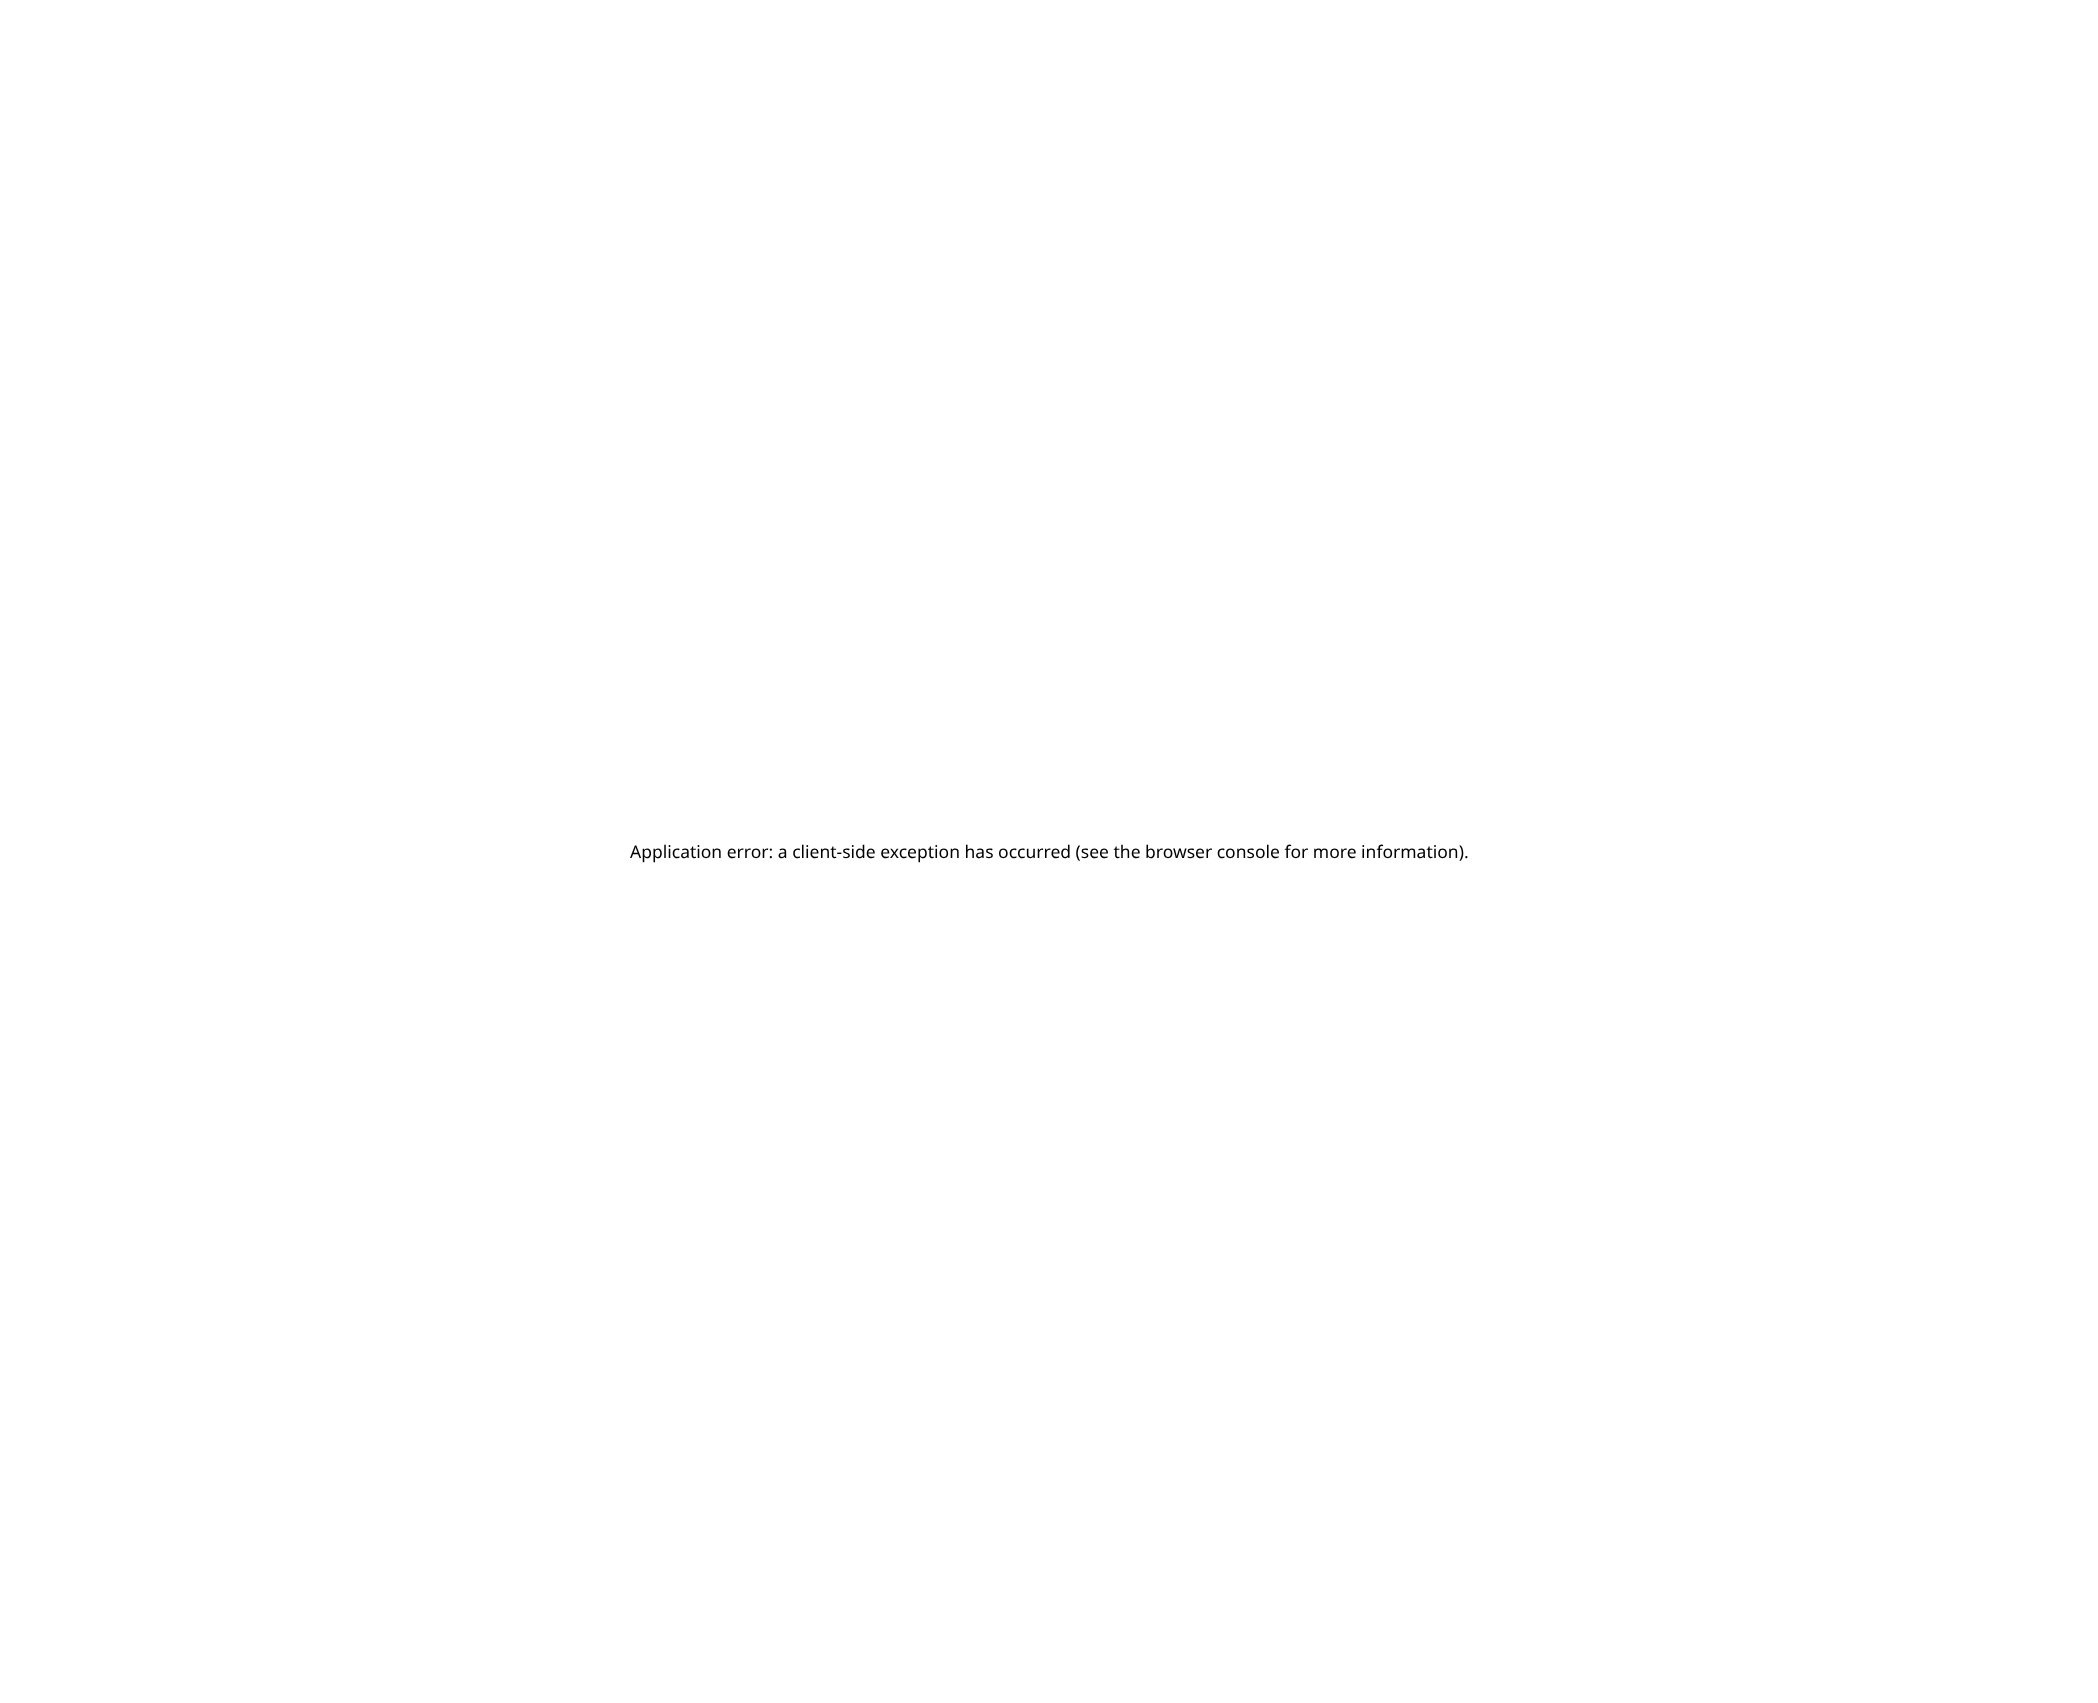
(async () => {
const canvas = document.querySelector("canvas")
canvas.width = 2098
canvas.height = 1703
const c = canvas.getContext("2d")
c.miterLimit = 4
c.fontKerning = "normal"
function T(s,x,y){c.fillText(s,x,y)}
function R(x,y,w,h){c.fillRect(x,y,w,h)}
c.fillStyle="#fff"
R(0,0,2098,1703)
c.font="17.5px Noto Sans"
c.fillStyle="#000"
T("Application error: a client-side exception has occurred (see the browser console for more information).",630,858)
})()
